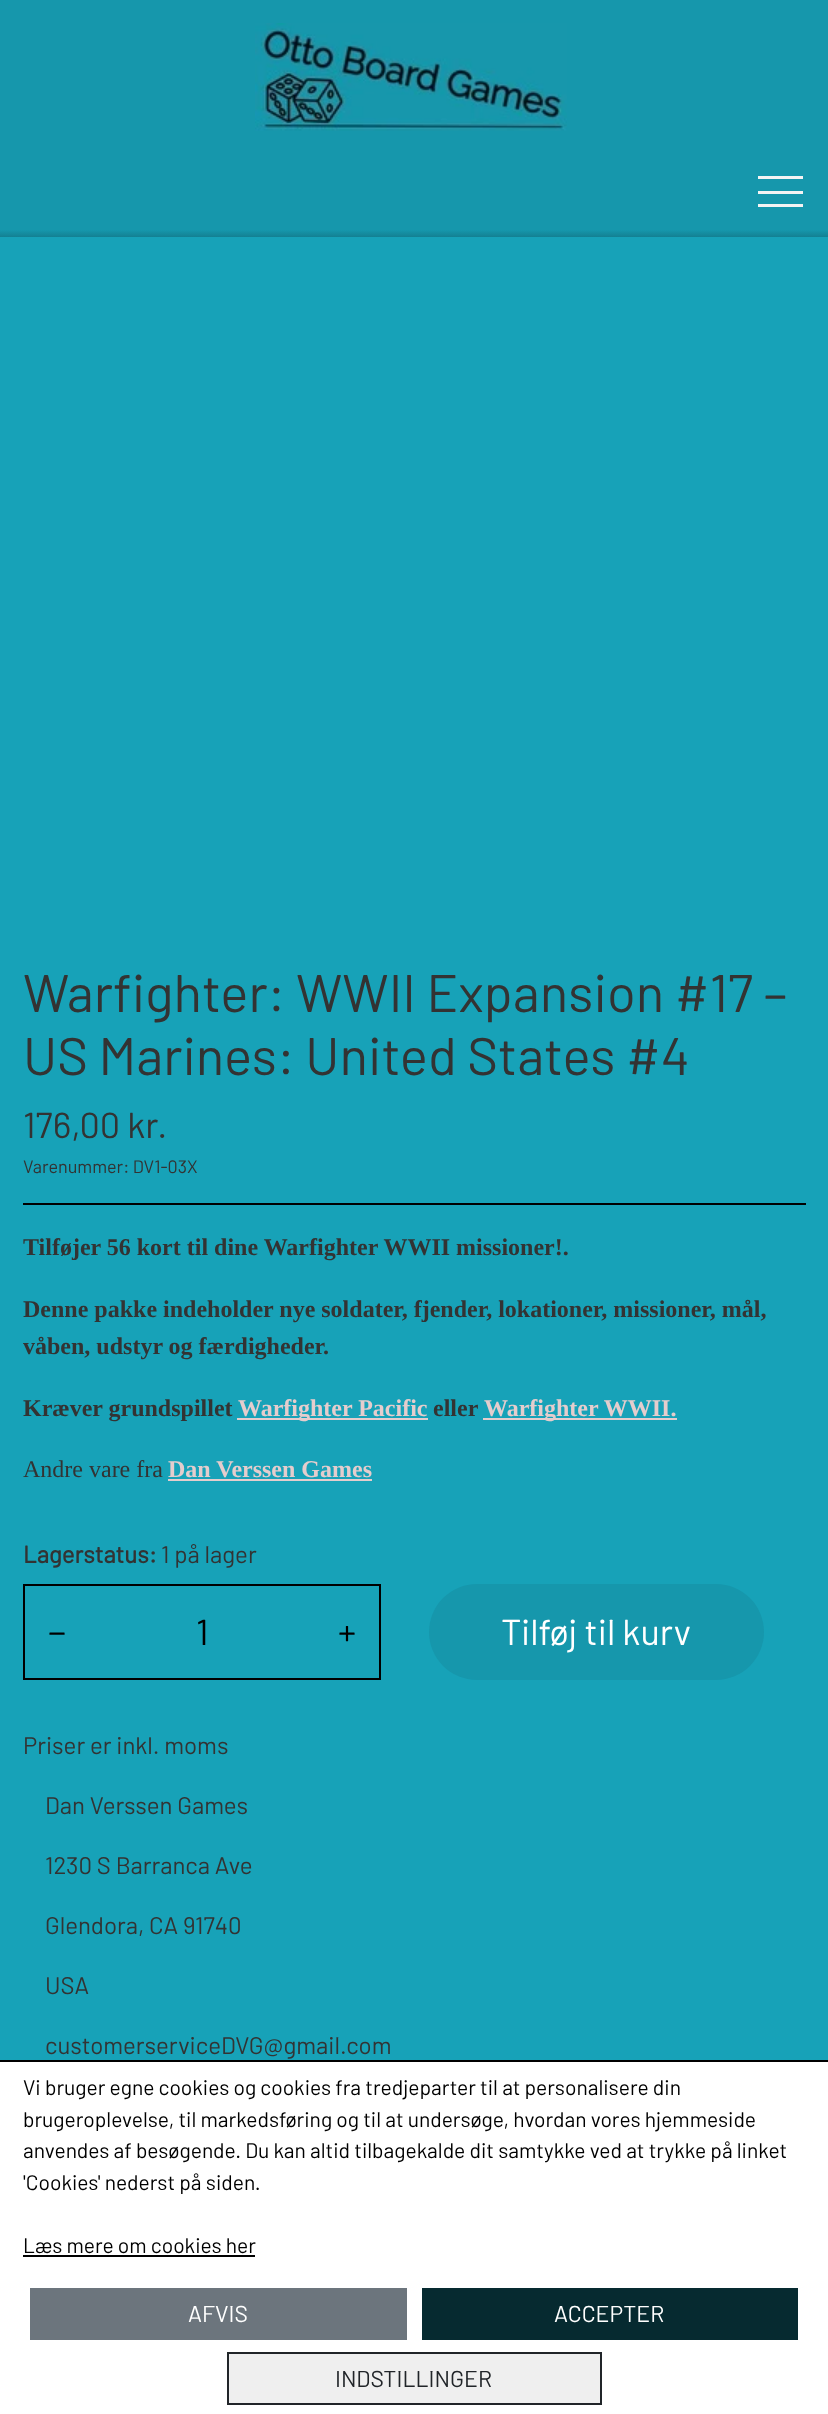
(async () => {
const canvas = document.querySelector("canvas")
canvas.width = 828
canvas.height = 2414
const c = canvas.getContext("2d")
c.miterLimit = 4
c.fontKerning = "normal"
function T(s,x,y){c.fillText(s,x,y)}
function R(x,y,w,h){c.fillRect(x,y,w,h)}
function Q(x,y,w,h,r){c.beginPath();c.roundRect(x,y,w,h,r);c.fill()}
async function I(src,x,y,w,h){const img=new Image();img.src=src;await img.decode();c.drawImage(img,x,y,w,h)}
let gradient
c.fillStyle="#17a2b8"
R(0,0,828,2414)
c.fillStyle="#1697ac"
R(0,0,828,230)
await I("1.png",255,23,312,108)
c.fillStyle="#f4f4f4"
R(758,176,45,3)
R(758,191,45,3)
R(758,204,45,3)
gradient = c.createLinearGradient(414,237,414,230)
gradient.addColorStop(0,"#138092")
gradient.addColorStop(1,"#1697ac")
c.fillStyle = gradient
R(0,230,828,7)
c.font="52.75px Barlow"
c.fillStyle="#333"
T("Warfighter: WWII Expansion #17 –",23,1012)
T("US Marines: United States #4",23,1075)
c.font="36px Barlow"
T("176,00 kr.",23,1138)
c.font="18px Barlow"
T("Varenummer: DV1-03X",23,1173)
c.fillStyle="#000"
R(23,1203,783,2)
c.save()
c.beginPath()
c.rect(23,1229,783,283)
c.clip()
c.font="bold 24px Liberation Serif"
c.fillStyle="#333"
T("Tilføjer 56 kort til dine Warfighter WWII missioner!.",23,1255)
c.restore()
c.font="bold 24px Liberation Serif"
c.fillStyle="#333"
T("Denne pakke indeholder nye soldater, fjender, lokationer, missioner, mål,",23,1317)
T("våben, udstyr og færdigheder.",23,1354)
T("Kræver grundspillet",23,1416)
c.fillStyle="#e5cdcd"
R(237,1418,191,2)
T("Warfighter Pacific",238,1416)
c.fillStyle="#333"
T("eller",433,1416)
c.fillStyle="#e5cdcd"
R(483,1418,194,2)
T("Warfighter WWII.",484,1416)
c.font="24px Liberation Serif"
c.fillStyle="#333"
T("Andre vare fra",23,1477)
c.font="bold 24px Liberation Serif"
c.fillStyle="#e5cdcd"
T("Dan Verssen Games",168,1477)
R(168,1479,204,2)
c.font="bold 24px Barlow"
c.fillStyle="#333"
T("Lagerstatus:",23,1563)
c.font="24px Barlow"
T("1 på lager",161,1563)
c.strokeStyle="#000"
c.lineWidth=2
c.strokeRect(24,1585,356,94)
c.font="36px Barlow"
c.fillStyle="#000"
T("−",48,1645)
T("1",196,1645)
T("+",338,1645)
c.fillStyle="#1697ac"
Q(429,1584,335,96,48)
c.fillStyle="#fff"
T("Tilføj til kurv",501,1645)
c.font="24px Barlow"
c.fillStyle="#333"
T("Priser er inkl. moms",23,1754)
T("Dan Verssen Games",45,1814)
T("1230 S Barranca Ave",45,1874)
T("Glendora, CA 91740",45,1934)
T("USA",45,1994)
T("customerserviceDVG@gmail.com",45,2054)
c.fillStyle="#fff"
R(0,2062,828,352)
c.fillStyle="#000"
R(0,2060,828,2)
c.font="21px Barlow"
T("Vi bruger egne cookies og cookies fra tredjeparter til at personalisere din",23,2095)
T("brugeroplevelse, til markedsføring og til at undersøge, hvordan vores hjemmeside",23,2127)
T("anvendes af besøgende. Du kan altid tilbagekalde dit samtykke ved at trykke på linket",23,2158)
T("'Cookies' nederst på siden.",23,2190)
T("Læs mere om cookies her",23,2253)
R(23,2255,232,2)
c.fillStyle="#6c757d"
R(30,2288,377,52)
c.font="23px Barlow"
c.fillStyle="#fff"
T("AFVIS",188,2322)
c.fillStyle="#062a30"
R(422,2288,376,52)
c.fillStyle="#fff"
T("ACCEPTER",554,2322)
c.fillStyle="#efefef"
c.beginPath()
c.rect(228,2353,373,51)
c.fill()
c.strokeStyle="#212529"
c.stroke()
c.fillStyle="#212529"
T("INDSTILLINGER",335,2387)
})()
